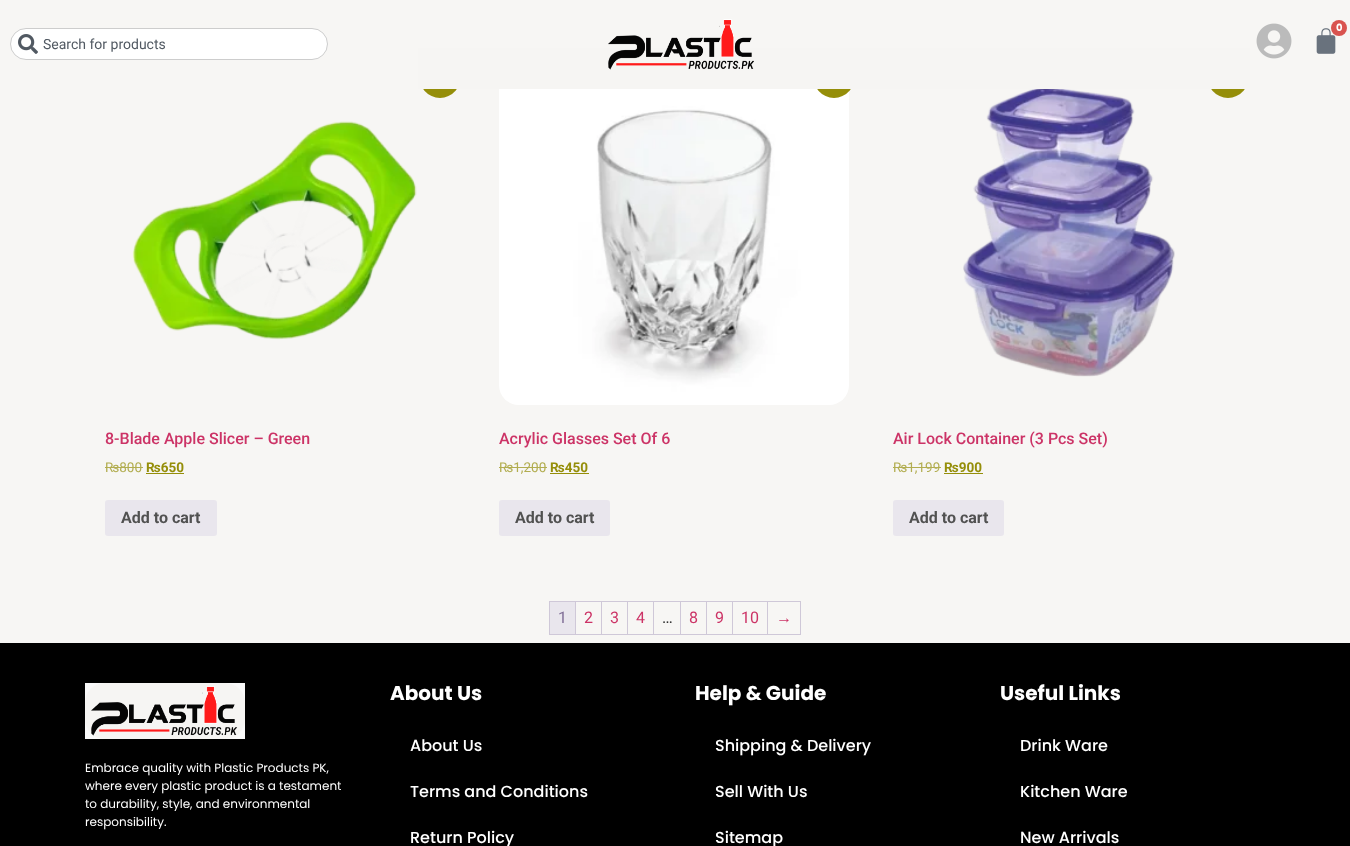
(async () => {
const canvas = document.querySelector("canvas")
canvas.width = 1350
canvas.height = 846
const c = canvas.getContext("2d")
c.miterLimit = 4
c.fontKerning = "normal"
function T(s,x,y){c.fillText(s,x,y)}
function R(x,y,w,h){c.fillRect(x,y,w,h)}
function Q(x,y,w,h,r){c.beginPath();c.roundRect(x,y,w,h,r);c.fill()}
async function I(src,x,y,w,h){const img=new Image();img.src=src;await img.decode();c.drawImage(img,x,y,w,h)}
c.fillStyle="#f7f6f4"
R(0,0,1350,846)
c.fillStyle="#958e09"
c.beginPath()
c.ellipse(440,73,22,25,0,0,7)
c.fill()
await I("6.png",499,89,350,316)
c.beginPath()
c.ellipse(834,73,22,25,0,0,7)
c.fill()
c.beginPath()
c.ellipse(1228,73,22,25,0,0,7)
c.fill()
c.fillStyle="#f6f5f3"
R(418,48,832,41)
await I("1.png",608,19,146,51)
await I("2.png",1256,23,36,36)
await I("3.png",1316,28,20,26)
c.fillStyle="#d9534f"
c.beginPath()
c.arc(1339,28,8,0,7)
c.fill()
c.font="bold 10px Poppins"
c.fillStyle="#fff"
T("0",1336,31)
c.beginPath()
c.roundRect(10.5,28.5,317,31,15.5)
c.fill()
c.strokeStyle="#cdcdcd"
c.stroke()
await I("4.png",18,34,20,20)
c.font="14px Roboto"
c.fillStyle="#515962"
T("Search for products",43,49)
await I("5.png",132,121,285,219)
c.font="500 16px Roboto"
c.fillStyle="#c36"
T("8-Blade Apple Slicer – Green",105,444)
c.font="13.5px Roboto"
c.fillStyle="#b2ad50"
T("₨800",105,472)
R(105,467,38,1)
c.font="bold 13.5px Roboto"
c.fillStyle="#958e09"
T("₨650",146,472)
R(146,473,38,1)
c.fillStyle="#e9e6ed"
Q(105,500,112,36,3)
c.font="bold 16px Roboto"
c.fillStyle="#515151"
T("Add to cart",121,523)
c.font="500 16px Roboto"
c.fillStyle="#c36"
T("Acrylic Glasses Set Of 6",499,444)
c.font="13.5px Roboto"
c.fillStyle="#b2ad50"
T("₨1,200",499,472)
R(499,467,48,1)
c.font="bold 13.5px Roboto"
c.fillStyle="#958e09"
T("₨450",550,472)
R(550,473,39,1)
c.fillStyle="#e9e6ed"
Q(499,500,111,36,3)
c.font="bold 16px Roboto"
c.fillStyle="#515151"
T("Add to cart",515,523)
await I("7.png",963,89,212,288)
c.font="500 16px Roboto"
c.fillStyle="#c36"
T("Air Lock Container (3 Pcs Set)",893,444)
c.font="13.5px Roboto"
c.fillStyle="#b2ad50"
T("₨1,199",893,472)
R(893,467,48,1)
c.font="bold 13.5px Roboto"
c.fillStyle="#958e09"
T("₨900",944,472)
R(944,473,39,1)
c.fillStyle="#e9e6ed"
Q(893,500,111,36,3)
c.font="bold 16px Roboto"
c.fillStyle="#515151"
T("Add to cart",909,523)
c.fillStyle="#cfc8d8"
R(549,601,252,1)
R(549,634,252,1)
R(549,601,1,34)
R(575,602,1,32)
c.fillStyle="#e9e6ed"
R(550,602,25,32)
c.font="16px Roboto"
c.fillStyle="#816f98"
T("1",558,623)
c.fillStyle="#cfc8d8"
R(601,602,1,32)
c.fillStyle="#c36"
T("2",584,623)
c.fillStyle="#cfc8d8"
R(627,602,1,32)
c.fillStyle="#c36"
T("3",610,623)
c.fillStyle="#cfc8d8"
R(653,602,1,32)
c.fillStyle="#c36"
T("4",636,623)
c.fillStyle="#cfc8d8"
R(680,602,1,32)
c.fillStyle="#333"
T("…",662,623)
c.fillStyle="#cfc8d8"
R(706,602,1,32)
c.fillStyle="#c36"
T("8",689,623)
c.fillStyle="#cfc8d8"
R(732,602,1,32)
c.fillStyle="#c36"
T("9",715,623)
c.fillStyle="#cfc8d8"
R(767,602,1,32)
c.fillStyle="#c36"
T("10",741,623)
c.fillStyle="#cfc8d8"
R(800,602,1,32)
c.font="16px Liberation Sans"
c.fillStyle="#c36"
T("→",776,623)
c.fillStyle="#000"
R(0,643,1350,203)
c.fillStyle="#fafafa"
R(85,683,160,56)
c.fillStyle="#f6f5f3"
Q(85,683,160,56,20)
await I("8.png",91,686,147,50)
c.font="12px Poppins"
c.fillStyle="#fff"
T("Embrace quality with Plastic Products PK,",85,772)
T("where every plastic product is a testament",85,790)
T("to durability, style, and environmental",85,808)
T("responsibility.",85,826)
c.font="bold 20px Poppins"
T("About Us",390,700)
c.font="500 16px Poppins"
T("About Us",410,751)
T("Terms and Conditions",410,797)
T("Return Policy",410,843)
c.font="bold 20px Poppins"
T("Help & Guide",695,700)
c.font="500 16px Poppins"
T("Shipping & Delivery",715,751)
T("Sell With Us",715,797)
T("Sitemap",715,843)
c.font="bold 20px Poppins"
T("Useful Links",1000,700)
c.font="500 16px Poppins"
T("Drink Ware",1020,751)
T("Kitchen Ware",1020,797)
T("New Arrivals",1020,843)
})()
